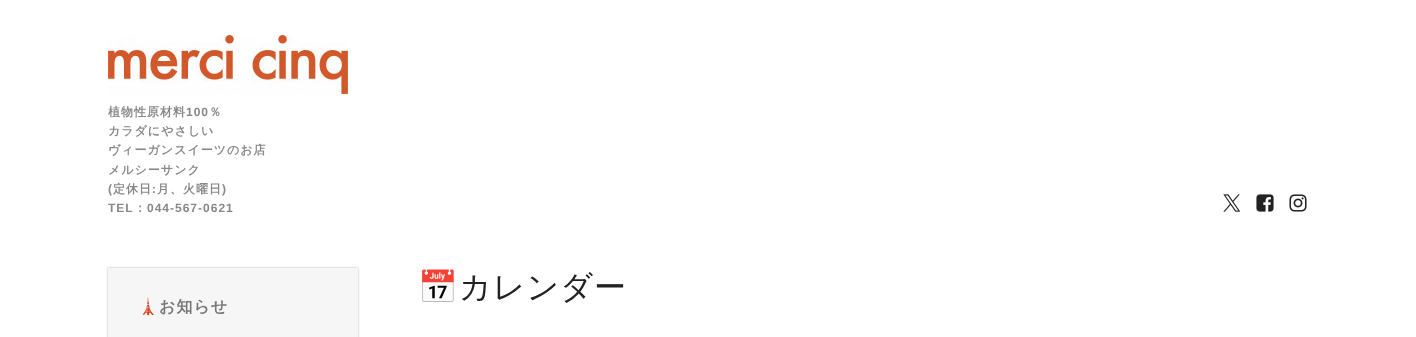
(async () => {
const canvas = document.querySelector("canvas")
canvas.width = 1416
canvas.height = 337
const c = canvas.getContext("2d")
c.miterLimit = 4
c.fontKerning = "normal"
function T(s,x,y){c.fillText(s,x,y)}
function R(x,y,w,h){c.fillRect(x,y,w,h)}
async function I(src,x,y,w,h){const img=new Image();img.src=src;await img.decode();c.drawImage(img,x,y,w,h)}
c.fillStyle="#fff"
R(0,0,1416,337)
await I("1.png",108,35,240,59)
c.letterSpacing="1px"
c.font="bold 12px WenQuanYi Zen Hei"
c.fillStyle="#888"
T("植物性原材料",108,116)
c.font="bold 12px Liberation Sans"
T("100",186,116)
c.font="bold 12px WenQuanYi Zen Hei"
T("％",209,116)
T("カラダにやさしい",108,135)
T("ヴィーガンスイーツのお店",108,154)
T("メルシーサンク",108,174)
c.font="bold 12px Liberation Sans"
T("(",108,193)
c.font="bold 12px WenQuanYi Zen Hei"
T("定休日",113,193)
c.font="bold 12px Liberation Sans"
T(":",152,193)
c.font="bold 12px WenQuanYi Zen Hei"
T("月、火曜日",157,193)
c.font="bold 12px Liberation Sans"
T(")",222,193)
T("TEL",108,212)
c.font="bold 12px WenQuanYi Zen Hei"
T("：",134,212)
c.font="bold 12px Liberation Sans"
T("044-567-0621",147,212)
await I("2.png",1223,194,18,18)
await I("3.png",1256,194,18,18)
await I("4.png",1289,194,18,18)
c.fillStyle="#0000004d"
c.filter="blur(1px)"
c.beginPath()
c.rect(108,268,250,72)
c.fill()
c.filter="none"
c.fillStyle="#f6f6f6"
R(108,268,250,69)
c.font="bold 16px Noto Color Emoji"
c.fillStyle="#777"
T("🗼",138,312)
c.font="bold 16px WenQuanYi Zen Hei"
T("お知らせ",159,312)
c.font="32px Noto Color Emoji"
c.fillStyle="#222"
T("📅",418,298)
c.font="500 32px WenQuanYi Zen Hei"
T("カレンダー",459,298)
})()
